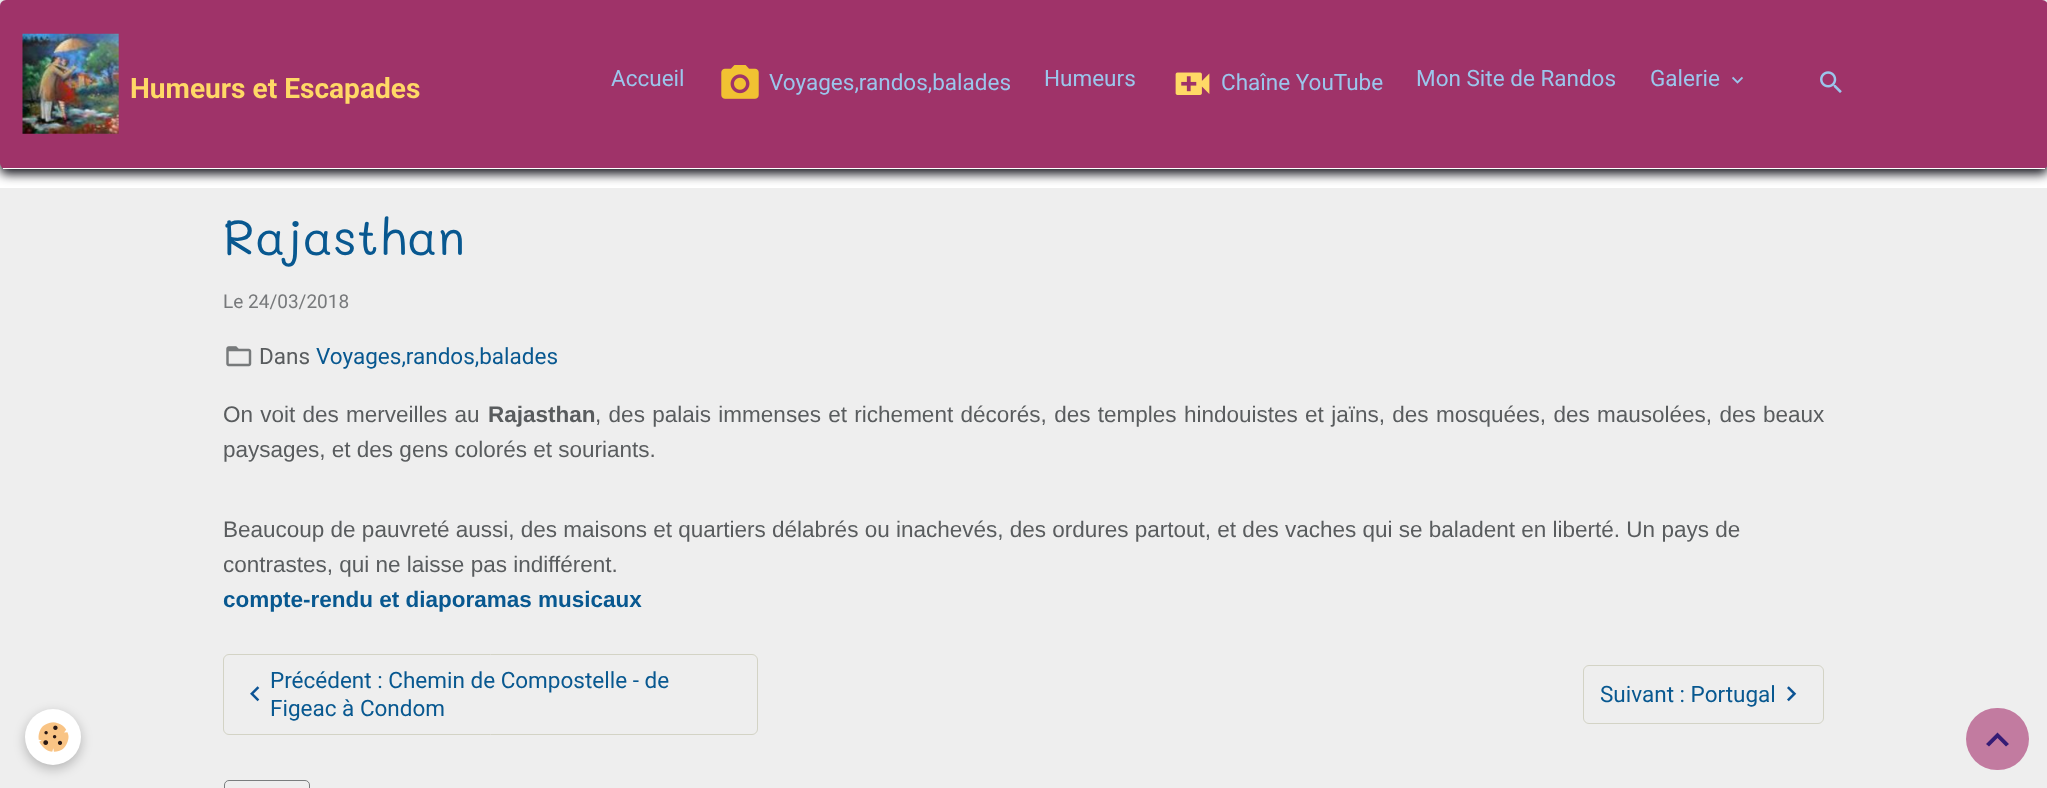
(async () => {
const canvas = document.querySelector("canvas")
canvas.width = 2047
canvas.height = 788
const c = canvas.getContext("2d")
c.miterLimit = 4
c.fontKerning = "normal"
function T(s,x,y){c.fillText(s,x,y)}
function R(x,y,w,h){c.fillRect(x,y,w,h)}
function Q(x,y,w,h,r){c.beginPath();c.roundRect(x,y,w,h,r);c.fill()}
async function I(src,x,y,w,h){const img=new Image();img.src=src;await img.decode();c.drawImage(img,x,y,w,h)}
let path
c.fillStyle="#fff"
R(0,0,2047,788)
c.fillStyle="#eee"
R(0,188,2047,600)
c.fillStyle="#14141c"
c.filter="blur(5.5px)"
c.beginPath()
c.roundRect(0,5,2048,169,6)
c.fill()
c.filter="none"
c.fillStyle="#9f3369"
Q(0,0,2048,169,6)
c.fillStyle="#fff"
R(3,168,2042,1)
await I("1.png",22,33,97,101)
c.font="bold 28.1px Roboto"
c.fillStyle="#ffd966"
T("Humeurs et Escapades",130,98)
c.font="22.5px Roboto"
c.fillStyle="#9bc6ec"
T("Accueil",611,86)
await I("2.png",721,65,38,34)
T("Voyages,randos,balades",769,90)
T("Humeurs",1044,86)
await I("3.png",1175,72,35,23)
T("Chaîne YouTube",1221,90)
T("Mon Site de Randos",1416,86)
T("Galerie",1650,86)
await I("4.png",1732,76,11,8)
await I("5.png",1820,71,22,22)
c.font="49.5px Mali"
c.fillStyle="#085890"
T("Rajasthan",223,255)
c.font="19px Roboto"
c.fillStyle="#77797b"
T("Le 24/03/2018",223,308)
await I("6.png",226,346,26,21)
c.font="22.5px Roboto"
c.fillStyle="#595c5e"
T("Dans",259,364)
c.fillStyle="#085890"
T("Voyages,randos,balades",316,364)
c.wordSpacing="1px"
c.font="22.5px Liberation Sans"
c.fillStyle="#595c5e"
T("On voit des merveilles au",223,422)
c.wordSpacing="0px"
c.font="bold 22.5px Liberation Sans"
T("Rajasthan",488,422)
c.wordSpacing="1.1px"
c.font="22.5px Liberation Sans"
T(", des palais immenses et richement décorés, des temples hindouistes et jaïns, des mosquées, des mausolées, des beaux",595,422)
c.wordSpacing="0px"
T("paysages, et des gens colorés et souriants.",223,457)
T("Beaucoup de pauvreté aussi, des maisons et quartiers délabrés ou inachevés, des ordures partout, et des vaches qui se baladent en liberté. Un pays de",223,537)
T("contrastes, qui ne laisse pas indifférent.",223,572)
c.font="bold 22.5px Liberation Sans"
c.fillStyle="#085890"
T("compte-rendu et diaporamas musicaux",223,607)
c.beginPath()
c.roundRect(223.5,654.5,534,80,5.5)
c.strokeStyle="#d3d3c5"
c.stroke()
await I("7.png",250,686,10,16)
c.font="22.5px Roboto"
T("Précédent : Chemin de Compostelle - de",270,688)
T("Figeac à Condom",270,716)
c.beginPath()
c.roundRect(1583.5,665.5,240,58,5.5)
c.stroke()
T("Suivant : Portugal",1600,702)
await I("8.png",1787,686,10,16)
c.beginPath()
c.roundRect(224.5,780.5,85,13,4.5)
c.strokeStyle="#7a7d7e"
c.stroke()
c.fillStyle="#0000003d"
c.filter="blur(6px)"
c.beginPath()
c.roundRect(25,713,56,56,28)
c.fill()
c.filter="none"
c.fillStyle="#fff"
c.beginPath()
c.arc(53,737,28,0,7)
c.fill()
await I("9.png",38,722,31,30)
c.fillStyle="#c27ba0"
Q(1966,708,63,62,31)
c.fillStyle="#351c75"
path = new Path2D("M1997.5 732.5l11.5 11.5l-3 2.5l-8.5-8.5l-8.5 8.5l-3-2.5z")
c.fill(path)
})()
